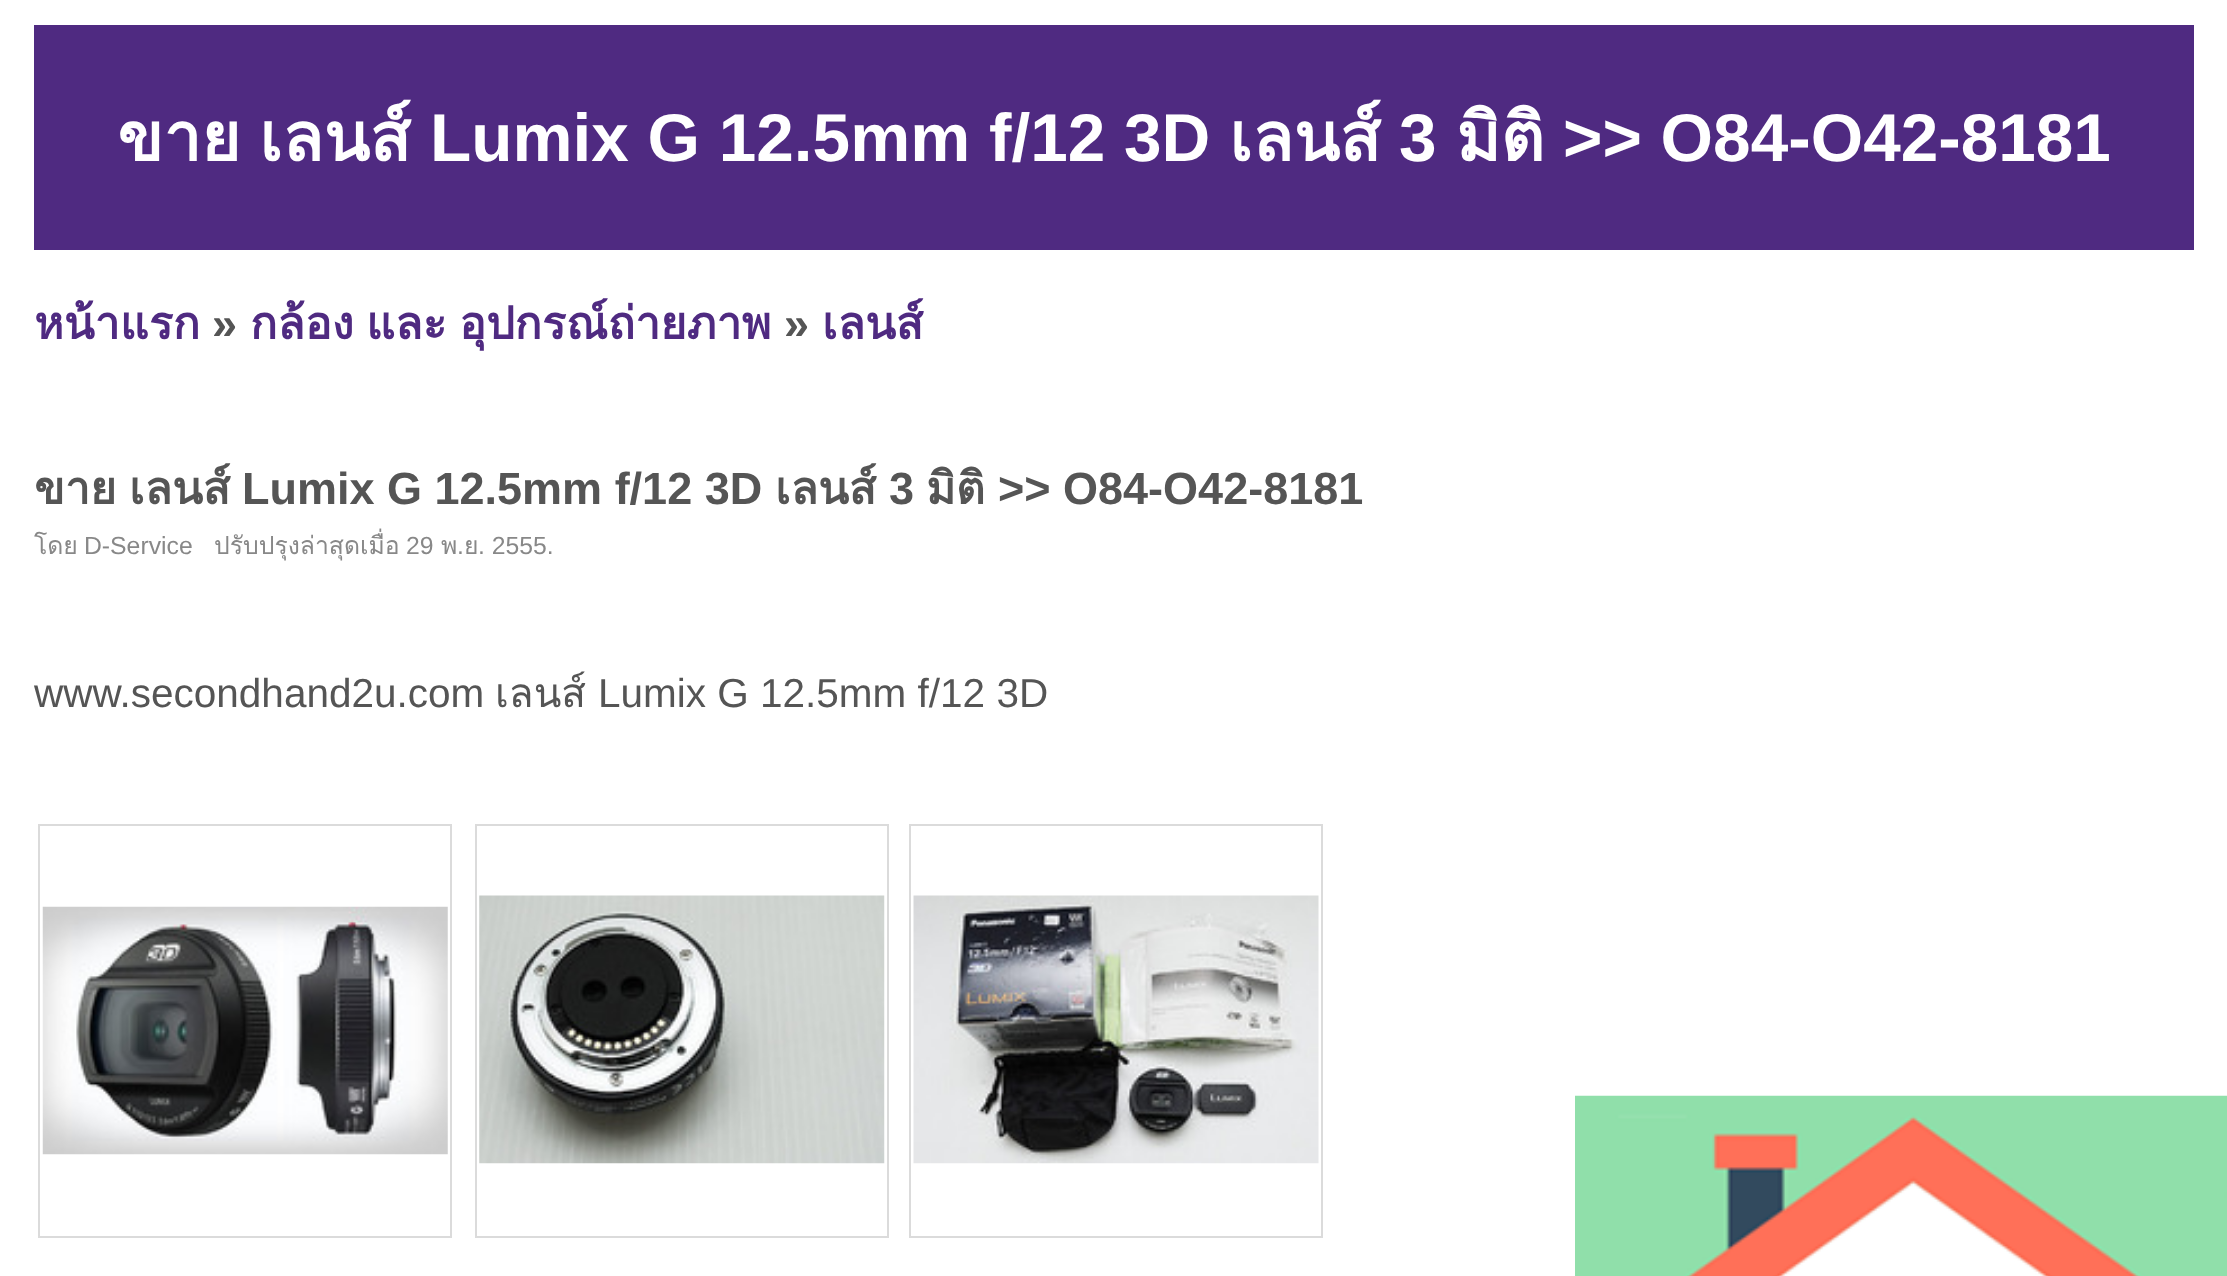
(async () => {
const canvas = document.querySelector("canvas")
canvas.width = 2227
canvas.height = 1276
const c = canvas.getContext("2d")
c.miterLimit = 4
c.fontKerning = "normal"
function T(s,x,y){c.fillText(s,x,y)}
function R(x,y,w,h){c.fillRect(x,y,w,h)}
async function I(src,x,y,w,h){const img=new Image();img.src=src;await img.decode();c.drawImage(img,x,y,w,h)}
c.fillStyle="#fff"
R(0,0,2227,1276)
c.fillStyle="#4f2a81"
R(34,25,2160,225)
c.font="bold 67.5px Loma"
c.fillStyle="#fff"
T("ขาย",117,161)
T("เลนส์",259,161)
c.font="bold 67.5px Liberation Sans"
T("Lumix G 12.5mm f/12 3D",430,161)
c.font="bold 67.5px Loma"
T("เลนส์",1229,161)
c.font="bold 67.5px Liberation Sans"
T("3",1399,161)
c.font="bold 67.5px Loma"
T("มิติ",1456,161)
c.font="bold 67.5px Liberation Sans"
T(">> O84-O42-8181",1563,161)
c.font="bold 45px Loma"
c.fillStyle="#4f2a81"
T("หน้าแรก",34,339)
c.font="bold 45px Liberation Sans"
c.fillStyle="#555"
T("»",212,339)
c.wordSpacing="-3px"
c.font="bold 45px Loma"
c.fillStyle="#4f2a81"
T("กล้อง และ อุปกรณ์ถ่ายภาพ",250,339)
c.wordSpacing="0px"
c.font="bold 45px Liberation Sans"
c.fillStyle="#555"
T("»",784,339)
c.font="bold 45px Loma"
c.fillStyle="#4f2a81"
T("เลนส์",822,339)
c.fillStyle="#555"
T("ขาย",34,504)
T("เลนส์",129,504)
c.font="bold 45px Liberation Sans"
T("Lumix G 12.5mm f/12 3D",242,504)
c.font="bold 45px Loma"
T("เลนส์",775,504)
c.font="bold 45px Liberation Sans"
T("3",889,504)
c.font="bold 45px Loma"
T("มิติ",926,504)
c.font="bold 45px Liberation Sans"
T(">> O84-O42-8181",998,504)
c.font="24.75px Loma"
c.fillStyle="#888"
T("โดย",34,554)
c.font="24.75px Liberation Sans"
T("D-Service",84,554)
c.font="24.75px Loma"
T("ปรับปรุงล่าสุดเมื่อ",214,554)
c.font="24.75px Liberation Sans"
T("29",406,554)
c.font="24.75px Loma"
T("พ",441,554)
c.font="24.75px Liberation Sans"
T(".",457,554)
c.font="24.75px Loma"
T("ย",464,554)
c.font="24.75px Liberation Sans"
T(". 2555.",478,554)
c.font="40.5px Liberation Sans"
c.fillStyle="#555"
T("www.secondhand2u.com",34,707)
c.font="40.5px Loma"
T("เลนส์",495,707)
c.font="40.5px Liberation Sans"
T("Lumix G 12.5mm f/12 3D",598,707)
c.strokeStyle="#dbdbdb"
c.lineWidth=2
c.strokeRect(39,825,412,412)
await I("1.png",42,906,406,249)
c.strokeRect(476,825,412,412)
await I("2.png",479,895,406,269)
c.strokeRect(910,825,412,412)
await I("3.png",913,895,406,269)
await I("4.png",1575,1095,652,181)
})()
